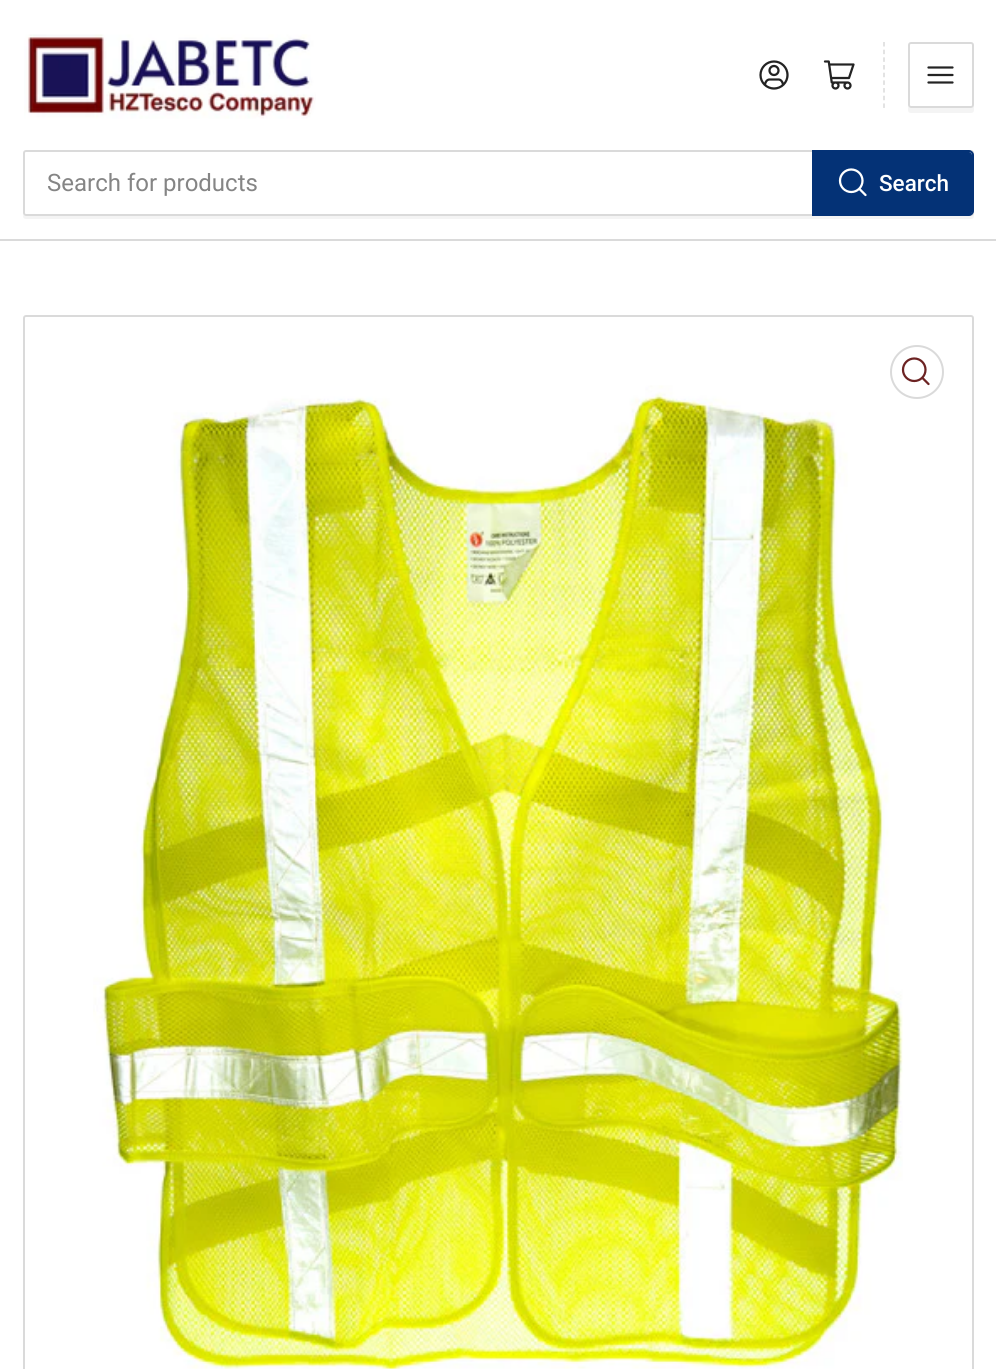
import math
import cairo

surface = cairo.ImageSurface(cairo.Format.RGB24, 996, 1369)
ctx = cairo.Context(surface)
options = cairo.FontOptions()
options.set_hint_metrics(cairo.HintMetrics.OFF)
options.set_hint_style(cairo.HintStyle.NONE)
ctx.set_font_options(options)
ctx.set_miter_limit(4)


def ink(r, g, b):
    ctx.set_source_rgb(r / 255, g / 255, b / 255)


def write(x, y, s, family, size, color, bold=False, italic=False):
    ctx.select_font_face(family, cairo.FontSlant.ITALIC if italic else cairo.FontSlant.NORMAL, cairo.FontWeight.BOLD if bold else cairo.FontWeight.NORMAL)
    ctx.set_font_size(size)
    ink(*color)
    ctx.move_to(x, y)
    ctx.show_text(s)


def block(x, y, w, h, *color):
    ink(*color)
    ctx.rectangle(x, y, w, h)
    ctx.fill()


def round_path(x, y, w, h, r):
    ctx.new_sub_path()
    for i, (u, v) in enumerate([(x + w - r, y + h - r), (x + r, y + h - r), (x + r, y + r), (x + w - r, y + r)]):
        ctx.arc(u, v, r, i * math.pi / 2, (i + 1) * math.pi / 2)
    ctx.close_path()


def paste(path, x, y, w, h):
    ctx.save()
    ctx.set_source_surface(cairo.ImageSurface.create_from_png(path), x, y)
    ctx.rectangle(x, y, w, h)
    ctx.fill()
    ctx.restore()


s1 = dict(family="Roboto", size=24, color=(133, 133, 133))
s2 = dict(family="Roboto Medium", size=22.5, color=(255, 255, 255))

ink(255, 255, 255)
ctx.paint()
block(0, 239, 996, 2, 218, 218, 218)
paste("pic1.png", 24, 34, 292, 85)
paste("pic2.png", 759, 60, 30, 30)
paste("pic3.png", 823, 60, 32, 30)
ctx.new_path()
ctx.move_to(884, 42)
ctx.line_to(884, 108)
ctx.set_line_width(1.5)
ctx.set_dash([4.5, 3.18])
ctx.stroke()
ink(244, 244, 244)
ctx.new_path()
ctx.move_to(908, 107)
ctx.line_to(908, 110)
ctx.curve_to(908, 112, 909, 113, 911, 113)
ctx.line_to(971, 113)
ctx.curve_to(973, 113, 974, 112, 974, 110)
ctx.line_to(974, 50)
ctx.line_to(974, 48)
ctx.line_to(974, 105)
ctx.curve_to(974, 107, 972, 108, 970, 108)
ctx.line_to(910, 108)
ctx.curve_to(909, 108, 909, 107, 908, 107)
ctx.close_path()
ctx.fill()
round_path(909, 43, 64, 64, 2)
ink(218, 218, 218)
ctx.set_line_width(2)
ctx.set_dash([])
ctx.stroke()
paste("pic4.png", 927, 66, 27, 18)
ink(244, 244, 244)
ctx.new_path()
ctx.move_to(23, 215)
ctx.line_to(23, 216)
ctx.curve_to(23, 218, 24, 219, 26, 219)
ctx.line_to(971, 219)
ctx.curve_to(973, 219, 974, 218, 974, 216)
ctx.line_to(974, 156)
ctx.line_to(974, 154)
ctx.line_to(974, 213)
ctx.curve_to(974, 215, 972, 216, 970, 216)
ctx.line_to(26, 216)
ctx.curve_to(24, 216, 24, 215, 23, 215)
ctx.close_path()
ctx.fill()
ink(255, 255, 255)
round_path(24, 151, 949, 64, 2)
ctx.fill_preserve()
ink(218, 218, 218)
ctx.stroke()
write(47, 191, "Search for products", **s1)
ctx.new_path()
ctx.move_to(813, 151)
ctx.line_to(969, 151)
ctx.curve_to(971, 151, 973, 153, 973, 155)
ctx.line_to(973, 211)
ctx.curve_to(973, 213, 971, 215, 969, 215)
ctx.line_to(813, 215)
ctx.close_path()
ink(4, 50, 118)
ctx.stroke()
ctx.new_path()
ctx.move_to(813, 152)
ctx.line_to(969, 152)
ctx.curve_to(970.5, 152, 972, 153.5, 972, 155)
ctx.line_to(972, 212)
ctx.curve_to(972, 213.5, 970.5, 215, 969, 215)
ctx.line_to(813, 215)
ctx.close_path()
ctx.fill()
paste("pic5.png", 838, 168, 29, 29)
write(879, 191, "Search", **s2)
round_path(24, 316, 949, 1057, 2)
ink(218, 218, 218)
ctx.stroke()
paste("pic7.png", 93, 385, 810, 984)
ctx.arc(917, 372, 26, 0, 2 * math.pi)
ctx.stroke()
paste("pic6.png", 901, 357, 29, 29)
surface.write_to_png("screenshot.png")
